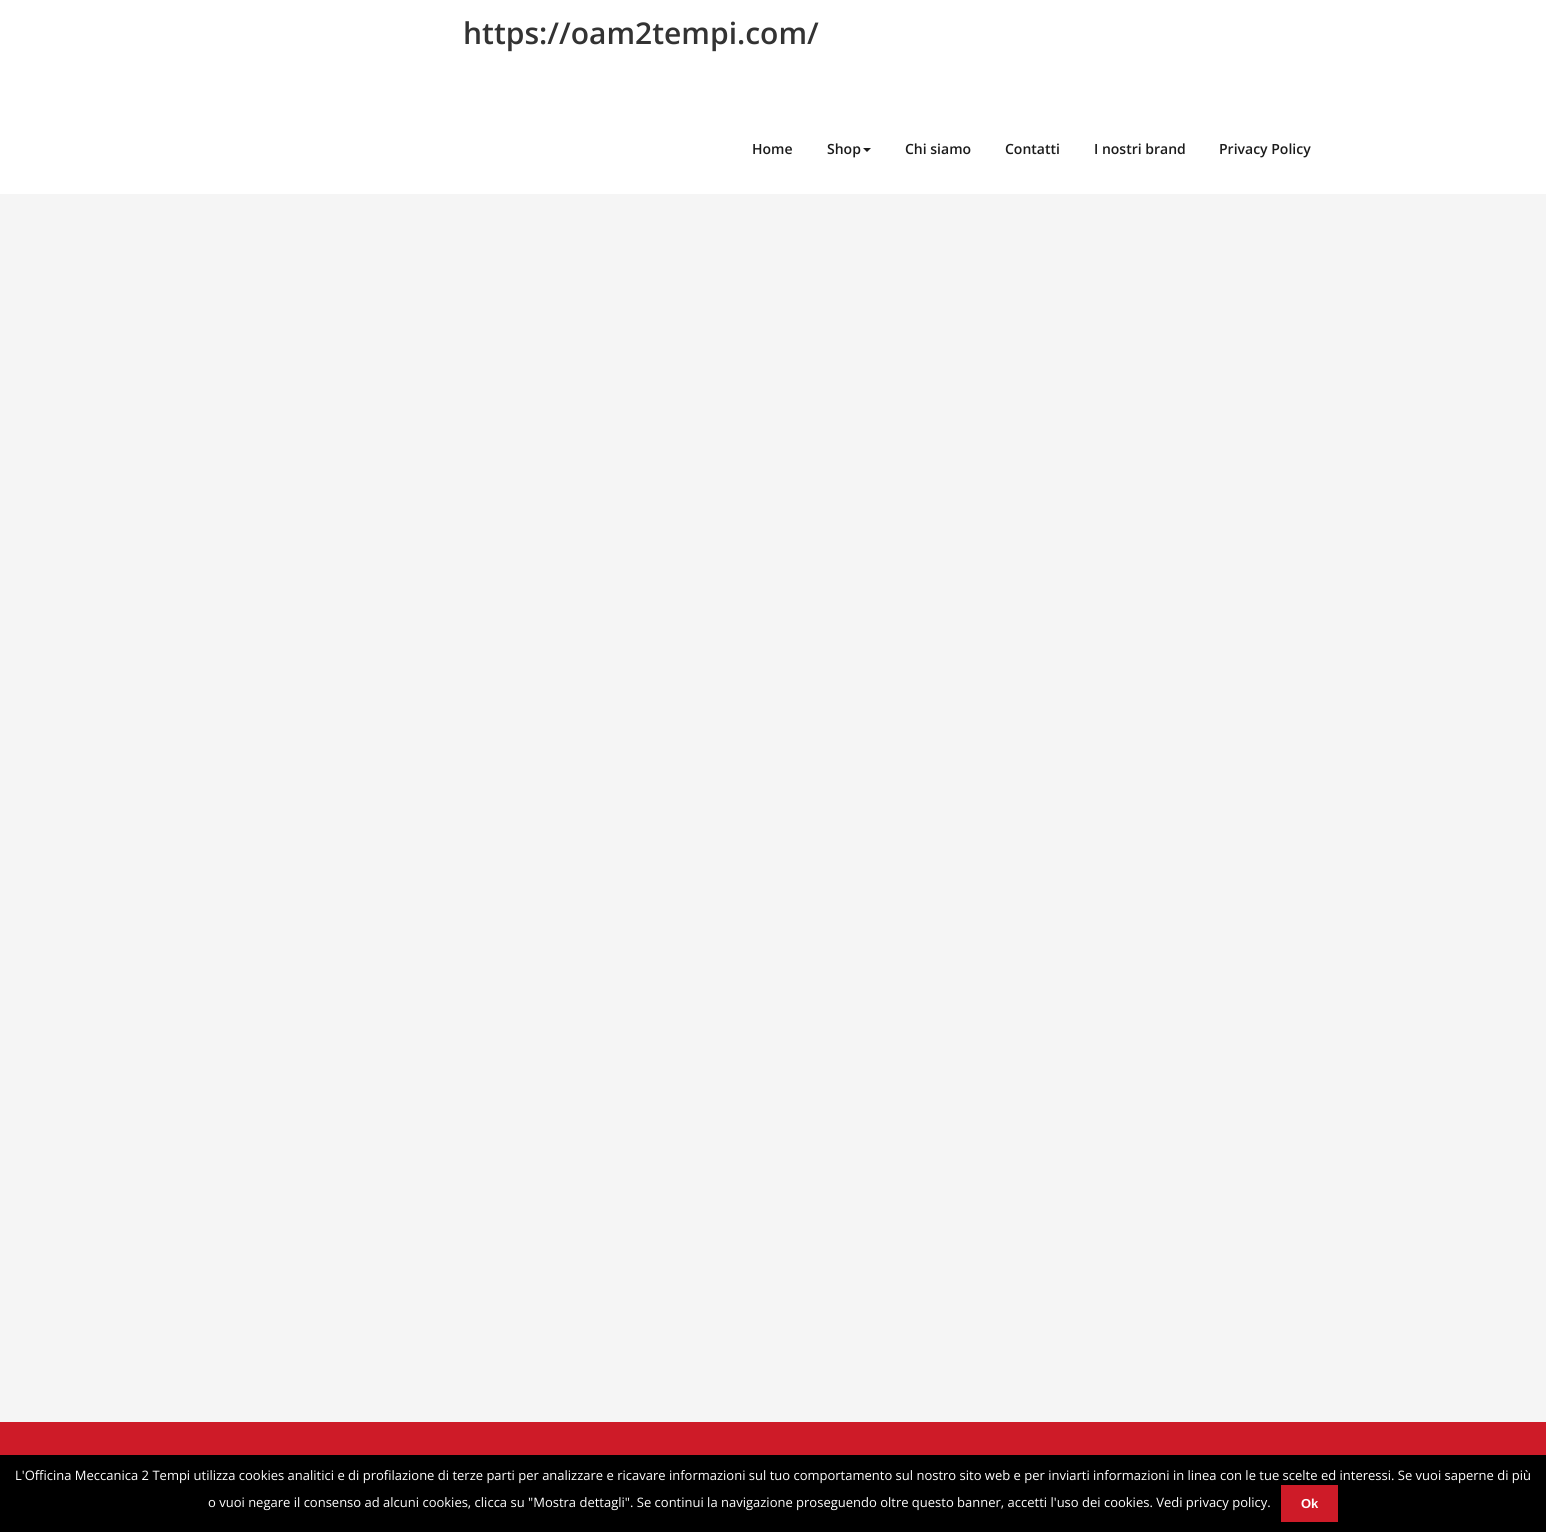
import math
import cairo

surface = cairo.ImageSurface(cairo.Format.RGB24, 1546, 1532)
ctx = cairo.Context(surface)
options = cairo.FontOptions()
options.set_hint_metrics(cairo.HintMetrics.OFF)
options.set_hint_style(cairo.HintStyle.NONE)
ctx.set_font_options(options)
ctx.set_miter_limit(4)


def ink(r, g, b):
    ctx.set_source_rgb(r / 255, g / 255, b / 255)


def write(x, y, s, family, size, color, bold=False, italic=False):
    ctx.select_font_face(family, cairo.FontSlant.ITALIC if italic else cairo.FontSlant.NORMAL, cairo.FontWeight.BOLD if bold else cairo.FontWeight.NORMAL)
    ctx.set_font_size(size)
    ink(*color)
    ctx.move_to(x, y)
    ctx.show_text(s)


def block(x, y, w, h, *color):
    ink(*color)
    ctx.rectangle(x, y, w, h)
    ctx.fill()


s1 = dict(family="Open Sans SemiBold", size=30, color=(51, 51, 51))
s2 = dict(family="Open Sans SemiBold", size=14, color=(27, 27, 27))
s3 = dict(family="Open Sans", size=13, color=(255, 255, 255))
s4 = dict(family="Liberation Sans", size=13, color=(255, 255, 255), bold=True)

ink(245, 245, 245)
ctx.paint()
block(0, 0, 1546, 194, 255, 255, 255)
write(463, 44, "https://oam2tempi.com/", **s1)
write(752, 154, "Home", **s2)
write(827, 154, "Shop", **s2)
ctx.new_path()
ctx.move_to(863, 148)
ctx.line_to(871, 148)
ctx.line_to(867, 152)
ctx.close_path()
ctx.fill()
write(905, 154, "Chi siamo", **s2)
write(1005, 154, "Contatti", **s2)
write(1094, 154, "I nostri brand", **s2)
write(1219, 154, "Privacy Policy", **s2)
block(0, 1422, 1546, 33, 206, 27, 40)
block(0, 1455, 1546, 77, 0, 0, 0)
write(15, 1480, "L'Officina Meccanica 2 Tempi utilizza cookies analitici e di profilazione di terze parti per analizzare e ricavare informazioni sul tuo comportamento sul nostro sito web e per inviarti informazioni in linea con le tue scelte ed interessi. Se vuoi saperne di più", **s3)
write(208, 1507, "o vuoi negare il consenso ad alcuni cookies, clicca su \"Mostra dettagli\". Se continui la navigazione proseguendo oltre questo banner, accetti l'uso dei cookies. Vedi privacy policy.", **s3)
block(1281, 1485, 57, 37, 206, 27, 40)
write(1301, 1508, "Ok", **s4)
surface.write_to_png("screenshot.png")
